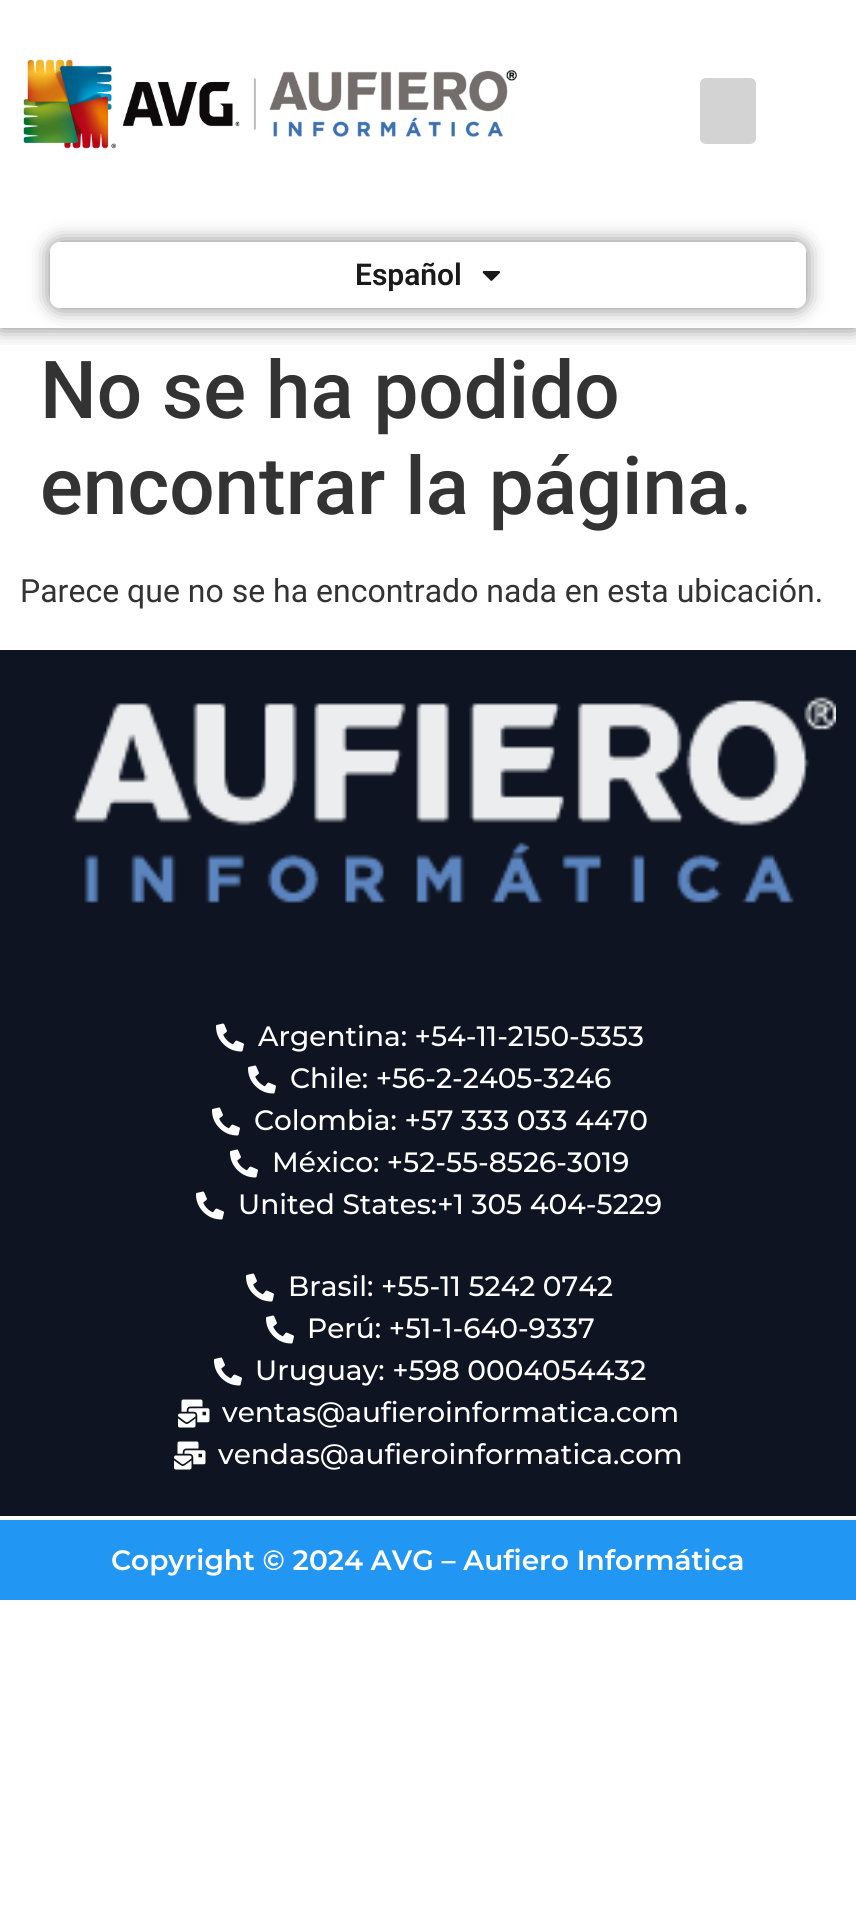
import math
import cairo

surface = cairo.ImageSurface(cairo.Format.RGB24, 856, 1907)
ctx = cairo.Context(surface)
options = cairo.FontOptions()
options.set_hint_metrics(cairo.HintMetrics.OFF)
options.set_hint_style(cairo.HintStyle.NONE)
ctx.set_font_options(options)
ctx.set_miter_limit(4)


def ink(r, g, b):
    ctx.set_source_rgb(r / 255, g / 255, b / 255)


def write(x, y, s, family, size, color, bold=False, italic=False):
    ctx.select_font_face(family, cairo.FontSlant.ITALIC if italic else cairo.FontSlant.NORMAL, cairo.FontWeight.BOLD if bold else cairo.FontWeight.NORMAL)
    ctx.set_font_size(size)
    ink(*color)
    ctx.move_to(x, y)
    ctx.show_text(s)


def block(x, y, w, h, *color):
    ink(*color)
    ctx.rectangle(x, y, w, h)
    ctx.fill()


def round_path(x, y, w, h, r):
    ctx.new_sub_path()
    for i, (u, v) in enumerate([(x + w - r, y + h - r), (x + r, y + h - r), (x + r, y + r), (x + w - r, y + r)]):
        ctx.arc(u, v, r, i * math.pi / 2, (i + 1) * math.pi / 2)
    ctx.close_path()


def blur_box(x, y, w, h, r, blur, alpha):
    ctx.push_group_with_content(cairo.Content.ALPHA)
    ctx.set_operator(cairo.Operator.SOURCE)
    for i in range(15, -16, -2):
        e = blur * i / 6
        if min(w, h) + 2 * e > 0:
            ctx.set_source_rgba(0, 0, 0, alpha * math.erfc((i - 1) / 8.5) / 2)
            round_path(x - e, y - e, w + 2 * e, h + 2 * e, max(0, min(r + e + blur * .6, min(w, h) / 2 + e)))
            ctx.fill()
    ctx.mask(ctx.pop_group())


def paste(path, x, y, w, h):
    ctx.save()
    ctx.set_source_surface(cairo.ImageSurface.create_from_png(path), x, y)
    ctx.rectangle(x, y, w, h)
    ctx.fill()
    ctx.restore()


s1 = dict(family="Roboto SemiBold", size=30, color=(26, 26, 26))
s2 = dict(family="Roboto Medium", size=80, color=(51, 51, 51))
s3 = dict(family="Roboto", size=32, color=(51, 51, 51))
s4 = dict(family="Montserrat Medium", size=28, color=(255, 255, 255))
s5 = dict(family="Montserrat SemiBold", size=28, color=(255, 255, 255))

ink(255, 255, 255)
ctx.paint()
ctx.save()
ctx.rectangle(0, 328, 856, 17)
ctx.clip()
ink(0, 0, 0)
blur_box(0, 0, 856, 328, 0, 10, 0.5)
ctx.restore()
paste("pic1.png", 23, 59, 495, 90)
ink(211, 211, 211)
round_path(700, 78, 56, 66, 6)
ctx.fill()
ctx.save()
ctx.set_fill_rule(cairo.FillRule.EVEN_ODD)
ctx.new_path()
ctx.move_to(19, 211)
ctx.line_to(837, 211)
ctx.line_to(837, 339)
ctx.line_to(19, 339)
ctx.close_path()
ctx.move_to(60, 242)
ctx.line_to(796, 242)
ctx.curve_to(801.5, 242, 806, 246.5, 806, 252)
ctx.line_to(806, 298)
ctx.curve_to(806, 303.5, 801.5, 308, 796, 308)
ctx.line_to(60, 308)
ctx.curve_to(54.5, 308, 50, 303.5, 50, 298)
ctx.line_to(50, 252)
ctx.curve_to(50, 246.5, 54.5, 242, 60, 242)
ctx.close_path()
ctx.clip()
ink(0, 0, 0)
blur_box(50, 242, 756, 66, 10, 10, 0.5)
ctx.restore()
write(355, 285, "Español", **s1)
paste("pic2.png", 482, 271, 19, 10)
write(40, 418, "No se ha podido", **s2)
write(40, 514, "encontrar la página.", **s2)
write(20, 602, "Parece que no se ha encontrado nada en esta ubicación.", **s3)
block(0, 650, 856, 866, 14, 20, 33)
paste("pic3.png", 72, 696, 764, 207)
paste("pic4.png", 216, 1023, 28, 29)
write(258, 1046, "Argentina: +54-11-2150-5353", **s4)
paste("pic4.png", 248, 1065, 28, 29)
write(290, 1088, "Chile: +56-2-2405-3246", **s4)
paste("pic4.png", 212, 1107, 28, 29)
write(254, 1130, "Colombia: +57 333 033 4470", **s4)
paste("pic4.png", 230, 1149, 28, 29)
write(272, 1172, "México: +52-55-8526-3019", **s4)
paste("pic4.png", 196, 1191, 28, 29)
write(238, 1214, "United States:+1 305 404-5229", **s4)
paste("pic4.png", 246, 1273, 28, 29)
write(288, 1296, "Brasil: +55-11 5242 0742", **s4)
paste("pic4.png", 266, 1315, 28, 29)
write(307, 1338, "Perú: +51-1-640-9337", **s4)
paste("pic4.png", 214, 1357, 28, 29)
write(255, 1380, "Uruguay: +598 0004054432", **s4)
paste("pic5.png", 178, 1399, 32, 29)
write(222, 1422, "ventas@aufieroinformatica.com", **s4)
paste("pic5.png", 174, 1441, 32, 29)
write(218, 1464, "vendas@aufieroinformatica.com", **s4)
block(0, 1520, 856, 80, 33, 150, 243)
write(111, 1570, "Copyright © 2024 AVG – Aufiero Informática", **s5)
surface.write_to_png("screenshot.png")
